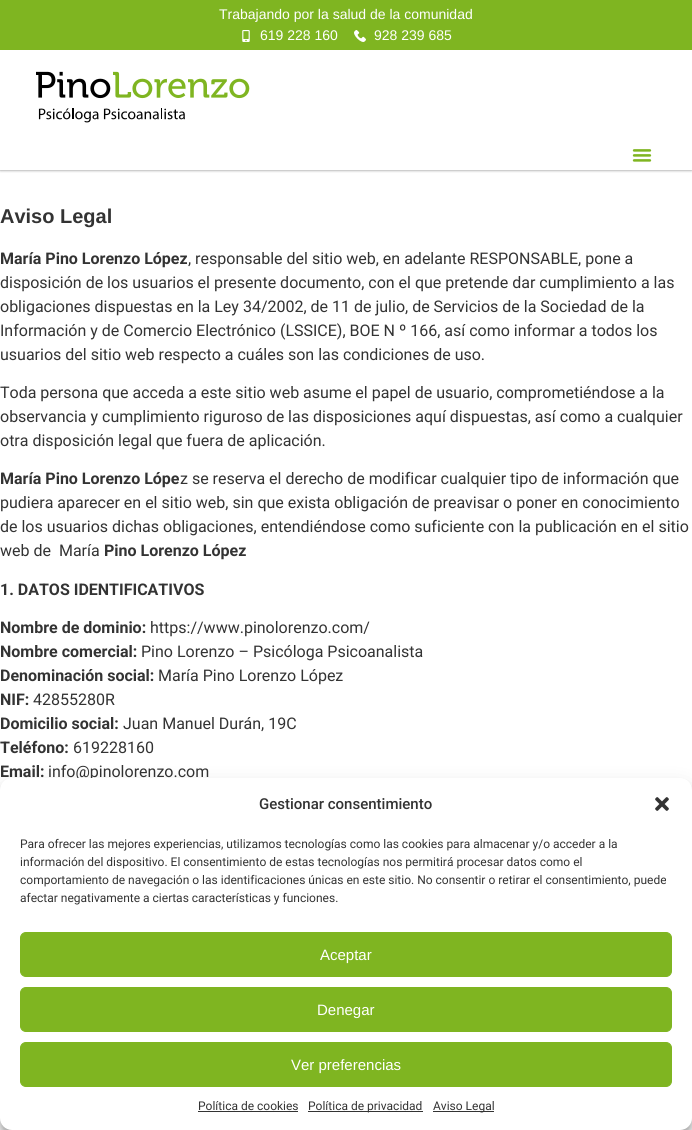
import math
import cairo

surface = cairo.ImageSurface(cairo.Format.RGB24, 692, 1130)
ctx = cairo.Context(surface)
options = cairo.FontOptions()
options.set_hint_metrics(cairo.HintMetrics.OFF)
options.set_hint_style(cairo.HintStyle.NONE)
ctx.set_font_options(options)
ctx.set_miter_limit(4)


def ink(r, g, b):
    ctx.set_source_rgb(r / 255, g / 255, b / 255)


def write(x, y, s, family, size, color, bold=False, italic=False):
    ctx.select_font_face(family, cairo.FontSlant.ITALIC if italic else cairo.FontSlant.NORMAL, cairo.FontWeight.BOLD if bold else cairo.FontWeight.NORMAL)
    ctx.set_font_size(size)
    ink(*color)
    ctx.move_to(x, y)
    ctx.show_text(s)


def block(x, y, w, h, *color):
    ink(*color)
    ctx.rectangle(x, y, w, h)
    ctx.fill()


def round_path(x, y, w, h, r):
    ctx.new_sub_path()
    for i, (u, v) in enumerate([(x + w - r, y + h - r), (x + r, y + h - r), (x + r, y + r), (x + w - r, y + r)]):
        ctx.arc(u, v, r, i * math.pi / 2, (i + 1) * math.pi / 2)
    ctx.close_path()


def blur_box(x, y, w, h, r, blur, alpha):
    ctx.push_group_with_content(cairo.Content.ALPHA)
    ctx.set_operator(cairo.Operator.SOURCE)
    for i in range(15, -16, -2):
        e = blur * i / 6
        if min(w, h) + 2 * e > 0:
            ctx.set_source_rgba(0, 0, 0, alpha * math.erfc((i - 1) / 8.5) / 2)
            round_path(x - e, y - e, w + 2 * e, h + 2 * e, max(0, min(r + e + blur * .6, min(w, h) / 2 + e)))
            ctx.fill()
    ctx.mask(ctx.pop_group())


def paste(path, x, y, w, h):
    ctx.save()
    ctx.set_source_surface(cairo.ImageSurface.create_from_png(path), x, y)
    ctx.rectangle(x, y, w, h)
    ctx.fill()
    ctx.restore()


s1 = dict(family="Liberation Sans", size=14, color=(255, 255, 255))
s2 = dict(family="Liberation Sans", size=20, color=(51, 51, 51), bold=True)
s3 = dict(family="Roboto", size=16, color=(51, 51, 51), bold=True)
s4 = dict(family="Roboto", size=16, color=(51, 51, 51))
s5 = dict(family="Roboto Medium", size=15, color=(51, 51, 51))
s6 = dict(family="Roboto", size=12, color=(51, 51, 51))
s7 = dict(family="Liberation Sans", size=15, color=(255, 255, 255))

ink(255, 255, 255)
ctx.paint()
ctx.save()
ctx.rectangle(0, 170, 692, 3)
ctx.clip()
ink(0, 0, 0)
blur_box(0, 50, 692, 120, 0, 1.5, 0.5)
ctx.restore()
block(0, 0, 692, 50, 127, 181, 33)
write(219, 19, "Trabajando por la salud de la comunidad", **s1)
paste("pic1.png", 242, 30, 8, 12)
write(260, 40, "619 228 160", **s1)
paste("pic2.png", 354, 30, 12, 12)
write(374, 40, "928 239 685", **s1)
paste("pic3.png", 36, 71, 214, 52)
paste("pic4.png", 632, 149, 20, 13)
write(0, 223, "Aviso Legal", **s2)
write(0, 264, "María Pino Lorenzo López", **s3)
write(188, 264, ", responsable del sitio web, en adelante RESPONSABLE, pone a", **s4)
write(0, 288, "disposición de los usuarios el presente documento, con el que pretende dar cumplimiento a las", **s4)
write(0, 312, "obligaciones dispuestas en la Ley 34/2002, de 11 de julio, de Servicios de la Sociedad de la", **s4)
write(0, 336, "Información y de Comercio Electrónico (LSSICE), BOE N º 166, así como informar a todos los", **s4)
write(0, 360, "usuarios del sitio web respecto a cuáles son las condiciones de uso.", **s4)
write(0, 398, "Toda persona que acceda a este sitio web asume el papel de usuario, comprometiéndose a la", **s4)
write(0, 422, "observancia y cumplimiento riguroso de las disposiciones aquí dispuestas, así como a cualquier", **s4)
write(0, 446, "otra disposición legal que fuera de aplicación.", **s4)
write(0, 484, "María Pino Lorenzo Lópe", **s3)
write(180, 484, "z se reserva el derecho de modificar cualquier tipo de información que", **s4)
write(0, 508, "pudiera aparecer en el sitio web, sin que exista obligación de preavisar o poner en conocimiento", **s4)
write(0, 532, "de los usuarios dichas obligaciones, entendiéndose como suficiente con la publicación en el sitio", **s4)
write(0, 556, "web de  María", **s4)
write(104, 556, "Pino Lorenzo López", **s3)
write(0, 595, "1. DATOS IDENTIFICATIVOS", **s3)
write(0, 633, "Nombre de dominio:", **s3)
write(150, 633, "https://www.pinolorenzo.com/", **s4)
write(0, 657, "Nombre comercial:", **s3)
write(141, 657, "Pino Lorenzo – Psicóloga Psicoanalista", **s4)
write(0, 681, "Denominación social:", **s3)
write(158, 681, "María Pino Lorenzo López", **s4)
write(0, 705, "NIF:", **s3)
write(33, 705, "42855280R", **s4)
write(0, 729, "Domicilio social:", **s3)
write(123, 729, "Juan Manuel Durán, 19C", **s4)
write(0, 753, "Teléfono:", **s3)
write(73, 753, "619228160", **s4)
write(0, 777, "Email:", **s3)
write(48, 777, "info@pinolorenzo.com", **s4)
ink(0, 0, 0)
blur_box(0, 784, 692, 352, 12, 3, 0.23)
blur_box(0, 788, 692, 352, 12, 10, 0.19)
ink(255, 255, 255)
round_path(0, 778, 692, 352, 12)
ctx.fill()
write(259, 809, "Gestionar consentimiento", **s5)
paste("pic5.png", 655, 797, 14, 14)
write(20, 848, "Para ofrecer las mejores experiencias, utilizamos tecnologías como las cookies para almacenar y/o acceder a la", **s6)
write(20, 866, "información del dispositivo. El consentimiento de estas tecnologías nos permitirá procesar datos como el", **s6)
write(20, 884, "comportamiento de navegación o las identificaciones únicas en este sitio. No consentir o retirar el consentimiento, puede", **s6)
write(20, 902, "afectar negativamente a ciertas características y funciones.", **s6)
ink(127, 181, 33)
round_path(20.5, 932.5, 651, 44, 5.5)
ctx.fill_preserve()
ctx.set_line_width(1)
ctx.stroke()
write(320, 960, "Aceptar", **s7)
ink(127, 181, 33)
round_path(20.5, 987.5, 651, 44, 5.5)
ctx.fill_preserve()
ctx.stroke()
write(317, 1015, "Denegar", **s7)
ink(127, 181, 33)
round_path(20.5, 1042.5, 651, 44, 5.5)
ctx.fill_preserve()
ctx.stroke()
write(291, 1070, "Ver preferencias", **s7)
write(198, 1110, "Política de cookies", **s6)
block(198, 1111, 100, 1, 51, 51, 51)
block(308, 1111, 115, 1, 51, 51, 51)
write(308, 1110, "Política de privacidad", **s6)
block(433, 1111, 61, 1, 51, 51, 51)
write(433, 1110, "Aviso Legal", **s6)
surface.write_to_png("screenshot.png")
